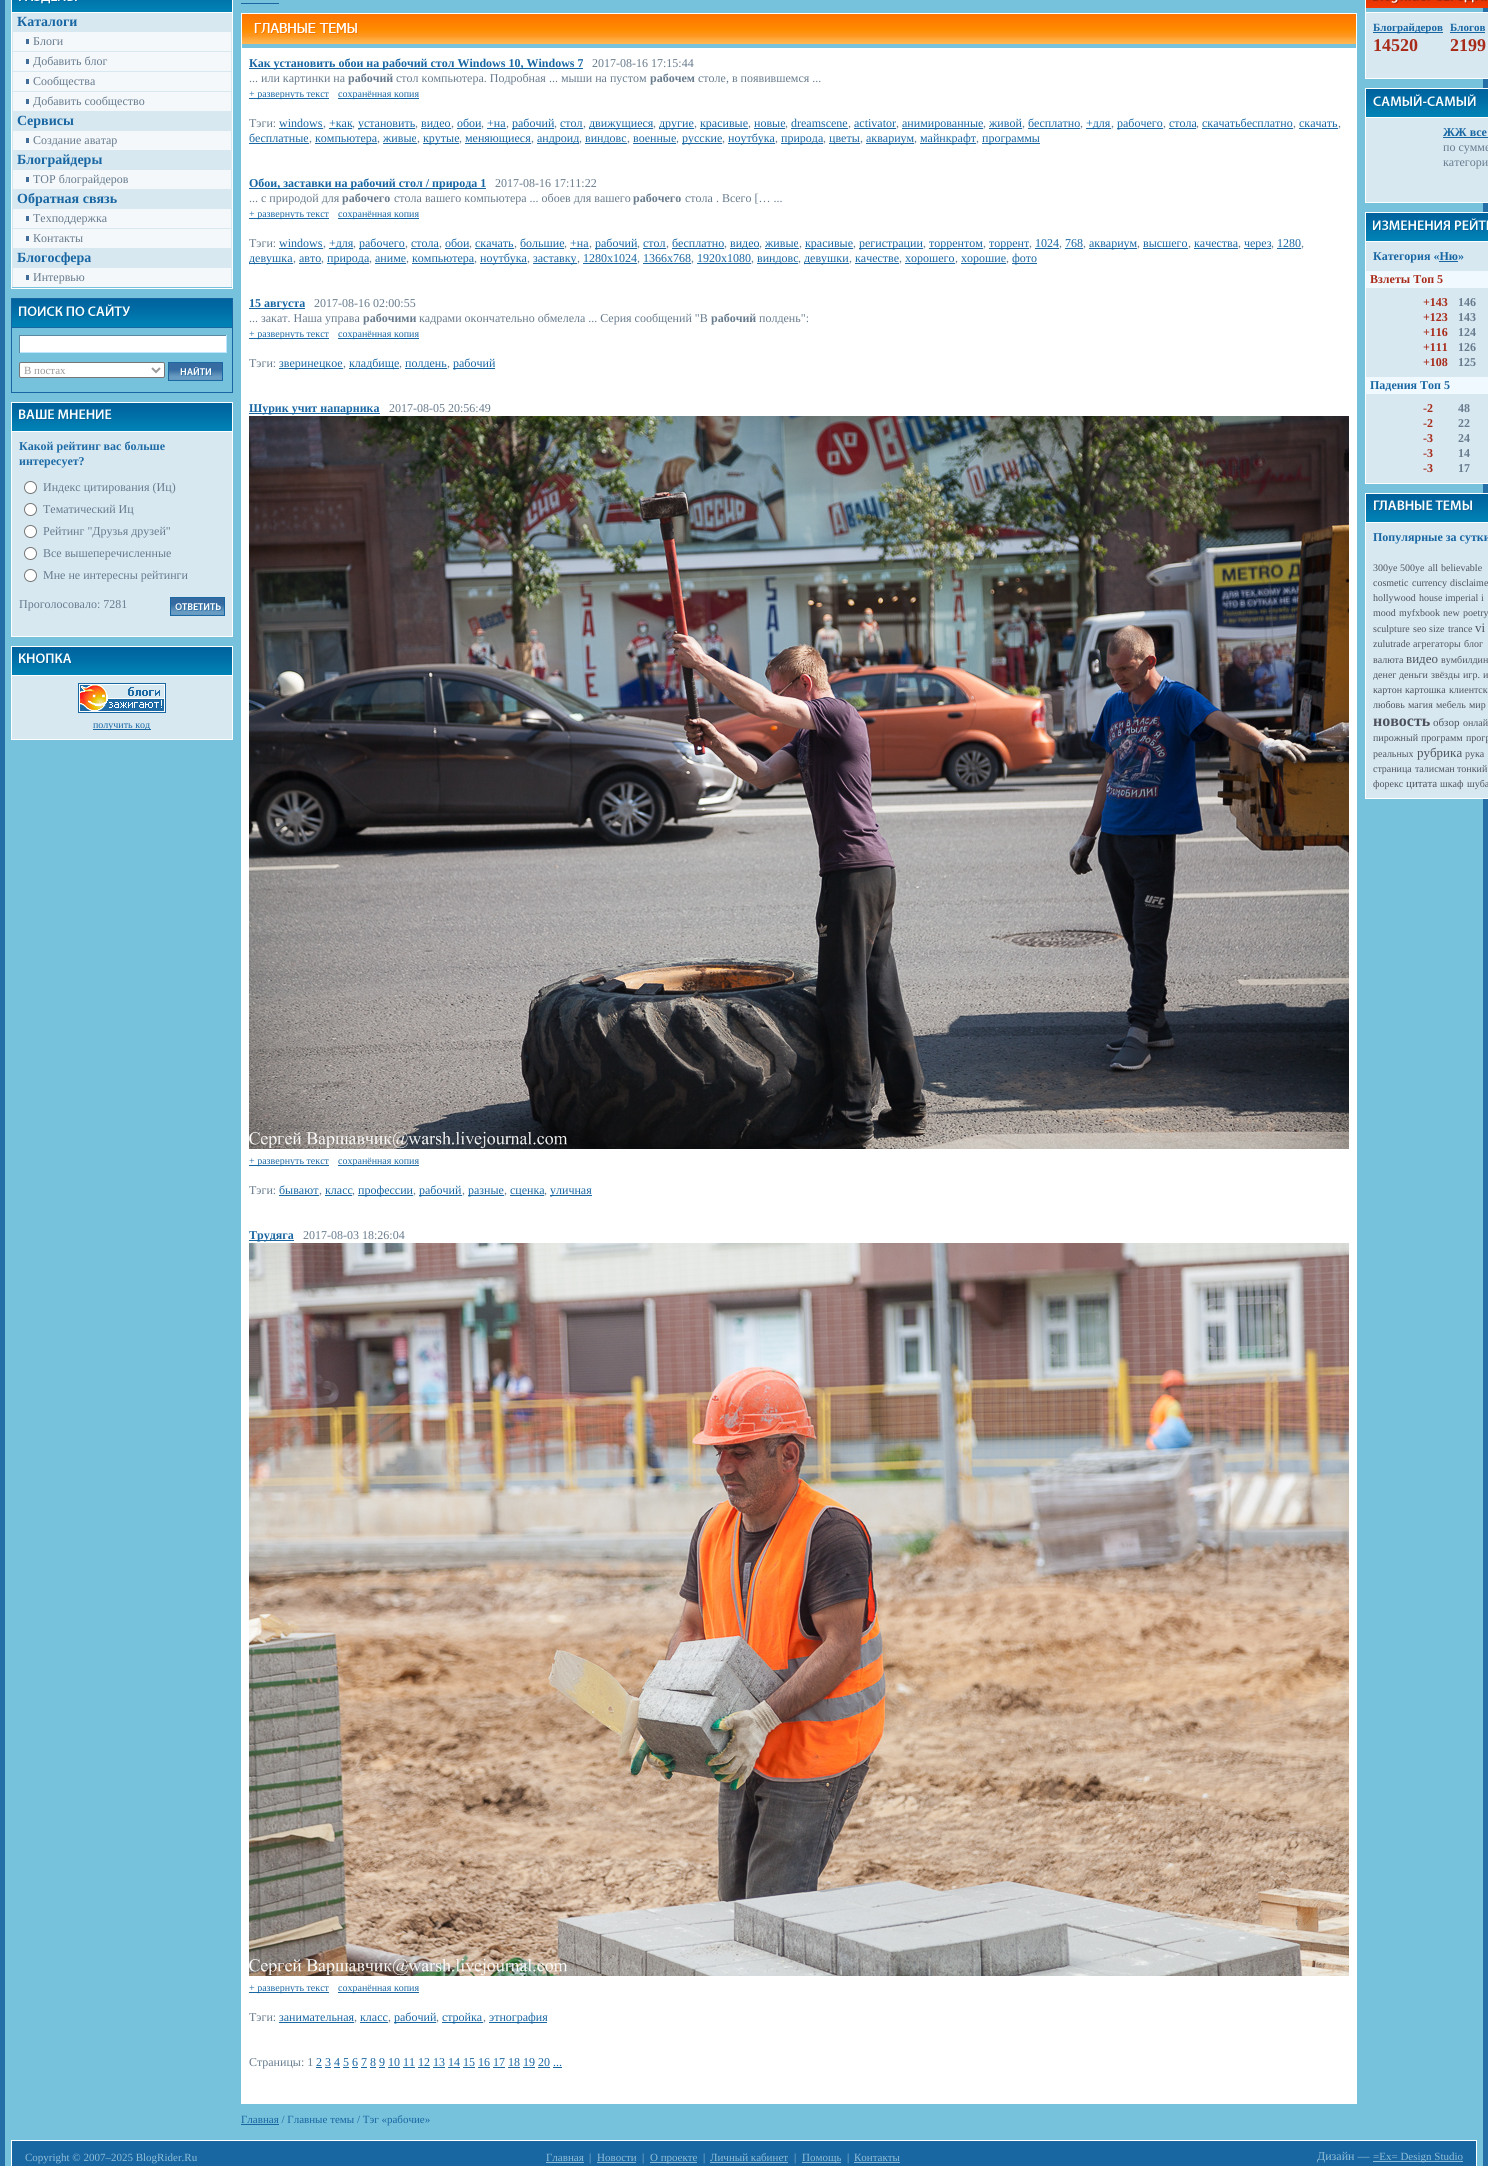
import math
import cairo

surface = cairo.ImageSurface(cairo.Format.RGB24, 1488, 2166)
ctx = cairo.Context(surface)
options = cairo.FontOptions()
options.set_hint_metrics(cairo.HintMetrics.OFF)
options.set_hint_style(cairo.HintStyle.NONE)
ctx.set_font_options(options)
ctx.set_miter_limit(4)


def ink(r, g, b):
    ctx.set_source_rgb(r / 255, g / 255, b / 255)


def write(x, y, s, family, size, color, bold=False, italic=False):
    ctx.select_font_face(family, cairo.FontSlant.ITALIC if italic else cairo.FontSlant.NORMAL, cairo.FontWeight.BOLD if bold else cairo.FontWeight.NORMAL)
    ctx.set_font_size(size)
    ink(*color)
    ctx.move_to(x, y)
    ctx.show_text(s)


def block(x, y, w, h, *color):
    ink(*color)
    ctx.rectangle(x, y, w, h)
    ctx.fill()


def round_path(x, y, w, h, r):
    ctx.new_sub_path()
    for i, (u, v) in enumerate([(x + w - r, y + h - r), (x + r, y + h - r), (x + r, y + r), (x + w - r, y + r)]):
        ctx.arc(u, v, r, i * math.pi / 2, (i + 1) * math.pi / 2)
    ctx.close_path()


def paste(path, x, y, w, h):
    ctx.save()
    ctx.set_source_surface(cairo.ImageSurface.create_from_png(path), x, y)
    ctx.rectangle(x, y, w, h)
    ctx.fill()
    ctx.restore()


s1 = dict(family="Liberation Serif", size=14, color=(24, 102, 162), bold=True)
s2 = dict(family="Liberation Serif", size=12, color=(103, 123, 141))
s3 = dict(family="Liberation Serif", size=11, color=(153, 153, 153))
s4 = dict(family="Liberation Serif", size=12, color=(30, 107, 165), bold=True)
s5 = dict(family="Liberation Serif", size=10, color=(24, 102, 162))
s6 = dict(family="Liberation Serif", size=12, color=(24, 102, 162), bold=True)
s7 = dict(family="Liberation Serif", size=12, color=(103, 123, 141), bold=True)
s8 = dict(family="Liberation Serif", size=12, color=(24, 102, 162))
s9 = dict(family="Liberation Serif", size=11, color=(24, 102, 162))
s10 = dict(family="Liberation Serif", size=11, color=(24, 102, 162), bold=True)
s11 = dict(family="Liberation Serif", size=18, color=(168, 42, 24), bold=True)
s12 = dict(family="Liberation Serif", size=12, color=(168, 42, 24), bold=True)
s13 = dict(family="Liberation Serif", size=10, color=(78, 82, 95))
s14 = dict(family="Liberation Serif", size=13, color=(78, 82, 95))
s15 = dict(family="Liberation Serif", size=16, color=(78, 82, 95), bold=True)
s16 = dict(family="Liberation Serif", size=11, color=(78, 82, 95))
s17 = dict(family="Liberation Serif", size=11, color=(143, 191, 217))
s18 = dict(family="Liberation Serif", size=12, color=(143, 191, 217))

ink(36, 111, 168)
ctx.paint()
block(5, 0, 1478, 2166, 118, 193, 219)
ctx.rectangle(11.5, -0.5, 221, 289)
ink(255, 255, 255)
ctx.set_line_width(1)
ctx.stroke()
paste("pic1.png", 12, 0, 220, 12)
block(12, 12, 220, 1, 255, 255, 255)
paste("pic2.png", 19, 0, 59, 5)
block(12, 13, 220, 274, 215, 232, 241)
write(17, 26, "Каталоги", **s1)
block(13, 32, 218, 19, 244, 248, 251)
write(33, 45, "Блоги", **s2)
block(26, 39, 3, 5, 65, 108, 154)
block(13, 52, 218, 19, 244, 248, 251)
write(33, 65, "Добавить блог", **s2)
block(26, 59, 3, 5, 65, 108, 154)
block(13, 72, 218, 19, 244, 248, 251)
write(33, 85, "Сообщества", **s2)
block(26, 79, 3, 5, 65, 108, 154)
block(13, 92, 218, 19, 244, 248, 251)
write(33, 105, "Добавить сообщество", **s2)
block(26, 99, 3, 5, 65, 108, 154)
write(17, 125, "Сервисы", **s1)
block(13, 131, 218, 19, 244, 248, 251)
write(33, 144, "Создание аватар", **s2)
block(26, 138, 3, 5, 65, 108, 154)
write(17, 164, "Блограйдеры", **s1)
block(13, 170, 218, 19, 244, 248, 251)
write(33, 183, "TOP блограйдеров", **s2)
block(26, 177, 3, 5, 65, 108, 154)
write(17, 203, "Обратная связь", **s1)
block(13, 209, 218, 19, 244, 248, 251)
write(33, 222, "Техподдержка", **s2)
block(26, 216, 3, 5, 65, 108, 154)
block(13, 229, 218, 19, 244, 248, 251)
write(33, 242, "Контакты", **s2)
block(26, 236, 3, 5, 65, 108, 154)
write(17, 262, "Блогосфера", **s1)
block(13, 268, 218, 19, 244, 248, 251)
write(33, 281, "Интервью", **s2)
block(26, 275, 3, 5, 65, 108, 154)
ctx.rectangle(11.5, 298.5, 221, 94)
ink(24, 102, 162)
ctx.stroke()
paste("pic3.png", 12, 299, 220, 28)
block(12, 327, 220, 1, 24, 102, 162)
paste("pic4.png", 19, 304, 112, 13)
block(20, 336, 206, 16, 255, 255, 255)
block(19, 335, 208, 1, 93, 137, 160)
block(226, 335, 1, 18, 188, 231, 255)
block(19, 352, 208, 1, 188, 231, 255)
block(19, 335, 1, 18, 93, 137, 160)
ink(255, 255, 255)
round_path(19.5, 362.5, 145, 15, 1.5)
ctx.fill_preserve()
ink(118, 118, 118)
ctx.stroke()
ctx.new_path()
ctx.move_to(152, 368)
ctx.line_to(156, 372)
ctx.line_to(160, 368)
ink(153, 153, 153)
ctx.set_line_width(2)
ctx.stroke()
write(24, 374, "В постах", **s3)
paste("pic5.png", 168, 362, 55, 19)
ctx.rectangle(11.5, 402.5, 221, 234)
ink(255, 255, 255)
ctx.set_line_width(1)
ctx.stroke()
paste("pic3.png", 12, 403, 220, 28)
block(12, 431, 220, 1, 255, 255, 255)
paste("pic6.png", 19, 409, 93, 11)
block(12, 432, 220, 204, 215, 232, 241)
write(19, 450, "Какой рейтинг вас больше", **s4)
write(19, 465, "интересует?", **s4)
ink(255, 255, 255)
ctx.new_path()
ctx.arc(30.5, 487.5, 6, 0, 2 * math.pi)
ctx.fill_preserve()
ink(118, 118, 118)
ctx.stroke()
write(43, 491, "Индекс цитирования (Иц)", **s2)
ink(255, 255, 255)
ctx.new_path()
ctx.arc(30.5, 509.5, 6, 0, 2 * math.pi)
ctx.fill_preserve()
ink(118, 118, 118)
ctx.stroke()
write(43, 513, "Тематический Иц", **s2)
ink(255, 255, 255)
ctx.new_path()
ctx.arc(30.5, 531.5, 6, 0, 2 * math.pi)
ctx.fill_preserve()
ink(118, 118, 118)
ctx.stroke()
write(43, 535, "Рейтинг \"Друзья друзей\"", **s2)
ink(255, 255, 255)
ctx.new_path()
ctx.arc(30.5, 553.5, 6, 0, 2 * math.pi)
ctx.fill_preserve()
ink(118, 118, 118)
ctx.stroke()
write(43, 557, "Все вышеперечисленные", **s2)
ink(255, 255, 255)
ctx.new_path()
ctx.arc(30.5, 575.5, 6, 0, 2 * math.pi)
ctx.fill_preserve()
ink(118, 118, 118)
ctx.stroke()
write(43, 579, "Мне не интересны рейтинги", **s2)
write(19, 608, "Проголосовало: 7281", **s2)
paste("pic7.png", 170, 597, 55, 19)
ctx.rectangle(11.5, 646.5, 221, 93)
ink(255, 255, 255)
ctx.stroke()
paste("pic3.png", 12, 647, 220, 28)
block(12, 675, 220, 1, 255, 255, 255)
paste("pic8.png", 19, 653, 53, 11)
block(12, 676, 220, 63, 215, 232, 241)
paste("pic9.png", 78, 683, 88, 30)
block(93, 729, 58, 1, 24, 102, 162)
write(93, 728, "получить код", **s5)
block(241, 3, 38, 1, 24, 102, 162)
ctx.rectangle(241.5, 13.5, 1115, 2090)
ink(255, 255, 255)
ctx.stroke()
paste("pic10.png", 242, 14, 1114, 30)
block(242, 48, 1114, 2055, 255, 255, 255)
paste("pic11.png", 254, 23, 104, 11)
block(249, 68, 334, 1, 24, 102, 162)
write(249, 67, "Как установить обои на рабочий стол Windows 10, Windows 7", **s6)
write(592, 67, "2017-08-16 17:15:44", **s2)
write(249, 82, "... или картинки на", **s2)
write(348, 82, "рабочий", **s7)
write(396, 82, "стол компьютера. Подробная ... мыши на пустом", **s2)
write(650, 82, "рабочем", **s7)
write(698, 82, "столе, в появившемся ...", **s2)
block(249, 98, 80, 1, 24, 102, 162)
write(249, 97, "+ развернуть текст", **s5)
block(338, 98, 81, 1, 24, 102, 162)
write(338, 97, "сохранённая копия", **s5)
write(249, 127, "Тэги:", **s2)
write(279, 127, "windows", **s8)
block(279, 128, 44, 1, 24, 102, 162)
write(323, 127, ",", **s2)
write(329, 127, "+как", **s8)
block(329, 128, 23, 1, 24, 102, 162)
write(352, 127, ",", **s2)
block(358, 128, 57, 1, 24, 102, 162)
write(358, 127, "установить", **s8)
write(415, 127, ",", **s2)
block(421, 128, 30, 1, 24, 102, 162)
write(421, 127, "видео", **s8)
write(451, 127, ",", **s2)
write(457, 127, "обои", **s8)
block(457, 128, 24, 1, 24, 102, 162)
write(481, 127, ",", **s2)
write(487, 127, "+на", **s8)
block(487, 128, 19, 1, 24, 102, 162)
write(506, 127, ",", **s2)
block(512, 128, 42, 1, 24, 102, 162)
write(512, 127, "рабочий", **s8)
write(554, 127, ",", **s2)
write(560, 127, "стол", **s8)
block(560, 128, 23, 1, 24, 102, 162)
write(583, 127, ",", **s2)
block(589, 128, 64, 1, 24, 102, 162)
write(589, 127, "движущиеся", **s8)
write(653, 127, ",", **s2)
block(659, 128, 35, 1, 24, 102, 162)
write(659, 127, "другие", **s8)
write(694, 127, ",", **s2)
block(700, 128, 48, 1, 24, 102, 162)
write(700, 127, "красивые", **s8)
write(748, 127, ",", **s2)
write(754, 127, "новые", **s8)
block(754, 128, 31, 1, 24, 102, 162)
write(785, 127, ",", **s2)
write(791, 127, "dreamscene", **s8)
block(791, 128, 57, 1, 24, 102, 162)
write(848, 127, ",", **s2)
write(854, 127, "activator", **s8)
block(854, 128, 42, 1, 24, 102, 162)
write(896, 127, ",", **s2)
block(902, 128, 81, 1, 24, 102, 162)
write(902, 127, "анимированные", **s8)
write(983, 127, ",", **s2)
write(989, 127, "живой", **s8)
block(989, 128, 33, 1, 24, 102, 162)
write(1022, 127, ",", **s2)
write(1028, 127, "бесплатно", **s8)
block(1028, 128, 52, 1, 24, 102, 162)
write(1080, 127, ",", **s2)
block(1086, 128, 25, 1, 24, 102, 162)
write(1086, 127, "+для", **s8)
write(1111, 127, ",", **s2)
block(1117, 128, 46, 1, 24, 102, 162)
write(1117, 127, "рабочего", **s8)
write(1163, 127, ",", **s2)
write(1169, 127, "стола", **s8)
block(1169, 128, 27, 1, 24, 102, 162)
write(1196, 127, ",", **s2)
write(1202, 127, "скачатьбесплатно", **s8)
block(1202, 128, 91, 1, 24, 102, 162)
write(1293, 127, ",", **s2)
write(1299, 127, "скачать", **s8)
block(1299, 128, 39, 1, 24, 102, 162)
write(1338, 127, ",", **s2)
write(249, 142, "бесплатные", **s8)
block(249, 143, 60, 1, 24, 102, 162)
write(309, 142, ",", **s2)
block(315, 143, 62, 1, 24, 102, 162)
write(315, 142, "компьютера", **s8)
write(377, 142, ",", **s2)
write(383, 142, "живые", **s8)
block(383, 143, 34, 1, 24, 102, 162)
write(417, 142, ",", **s2)
block(423, 143, 36, 1, 24, 102, 162)
write(423, 142, "крутые", **s8)
write(459, 142, ",", **s2)
block(465, 143, 66, 1, 24, 102, 162)
write(465, 142, "меняющиеся", **s8)
write(531, 142, ",", **s2)
block(537, 143, 42, 1, 24, 102, 162)
write(537, 142, "андроид", **s8)
write(579, 142, ",", **s2)
block(585, 143, 42, 1, 24, 102, 162)
write(585, 142, "виндовс", **s8)
write(627, 142, ",", **s2)
write(633, 142, "военные", **s8)
block(633, 143, 43, 1, 24, 102, 162)
write(676, 142, ",", **s2)
block(682, 143, 40, 1, 24, 102, 162)
write(682, 142, "русские", **s8)
write(722, 142, ",", **s2)
block(728, 143, 47, 1, 24, 102, 162)
write(728, 142, "ноутбука", **s8)
write(775, 142, ",", **s2)
block(781, 143, 42, 1, 24, 102, 162)
write(781, 142, "природа", **s8)
write(823, 142, ",", **s2)
block(829, 143, 31, 1, 24, 102, 162)
write(829, 142, "цветы", **s8)
write(860, 142, ",", **s2)
block(866, 143, 48, 1, 24, 102, 162)
write(866, 142, "аквариум", **s8)
write(914, 142, ",", **s2)
block(920, 143, 56, 1, 24, 102, 162)
write(920, 142, "майнкрафт", **s8)
write(976, 142, ",", **s2)
block(982, 143, 58, 1, 24, 102, 162)
write(982, 142, "программы", **s8)
block(249, 188, 237, 1, 24, 102, 162)
write(249, 187, "Обои, заставки на рабочий стол / природа 1", **s6)
write(495, 187, "2017-08-16 17:11:22", **s2)
write(249, 202, "... с природой для", **s2)
write(342, 202, "рабочего", **s7)
write(394, 202, "стола вашего компьютера ... обоев для вашего", **s2)
write(633, 202, "рабочего", **s7)
write(685, 202, "стола . Всего [… ...", **s2)
block(249, 218, 80, 1, 24, 102, 162)
write(249, 217, "+ развернуть текст", **s5)
block(338, 218, 81, 1, 24, 102, 162)
write(338, 217, "сохранённая копия", **s5)
write(249, 247, "Тэги:", **s2)
write(279, 247, "windows", **s8)
block(279, 248, 44, 1, 24, 102, 162)
write(323, 247, ",", **s2)
block(329, 248, 24, 1, 24, 102, 162)
write(329, 247, "+для", **s8)
write(353, 247, ",", **s2)
block(359, 248, 46, 1, 24, 102, 162)
write(359, 247, "рабочего", **s8)
write(405, 247, ",", **s2)
write(411, 247, "стола", **s8)
block(411, 248, 28, 1, 24, 102, 162)
write(439, 247, ",", **s2)
write(445, 247, "обои", **s8)
block(445, 248, 24, 1, 24, 102, 162)
write(469, 247, ",", **s2)
write(475, 247, "скачать", **s8)
block(475, 248, 39, 1, 24, 102, 162)
write(514, 247, ",", **s2)
write(520, 247, "большие", **s8)
block(520, 248, 44, 1, 24, 102, 162)
write(564, 247, ",", **s2)
write(570, 247, "+на", **s8)
block(570, 248, 19, 1, 24, 102, 162)
write(589, 247, ",", **s2)
block(595, 248, 42, 1, 24, 102, 162)
write(595, 247, "рабочий", **s8)
write(637, 247, ",", **s2)
write(643, 247, "стол", **s8)
block(643, 248, 23, 1, 24, 102, 162)
write(666, 247, ",", **s2)
write(672, 247, "бесплатно", **s8)
block(672, 248, 52, 1, 24, 102, 162)
write(724, 247, ",", **s2)
block(730, 248, 29, 1, 24, 102, 162)
write(730, 247, "видео", **s8)
write(759, 247, ",", **s2)
write(765, 247, "живые", **s8)
block(765, 248, 34, 1, 24, 102, 162)
write(799, 247, ",", **s2)
block(805, 248, 48, 1, 24, 102, 162)
write(805, 247, "красивые", **s8)
write(853, 247, ",", **s2)
block(859, 248, 64, 1, 24, 102, 162)
write(859, 247, "регистрации", **s8)
write(923, 247, ",", **s2)
block(929, 248, 54, 1, 24, 102, 162)
write(929, 247, "торрентом", **s8)
write(983, 247, ",", **s2)
block(989, 248, 40, 1, 24, 102, 162)
write(989, 247, "торрент", **s8)
write(1029, 247, ",", **s2)
write(1035, 247, "1024", **s8)
block(1035, 248, 24, 1, 24, 102, 162)
write(1059, 247, ",", **s2)
write(1065, 247, "768", **s8)
block(1065, 248, 18, 1, 24, 102, 162)
write(1083, 247, ",", **s2)
block(1089, 248, 48, 1, 24, 102, 162)
write(1089, 247, "аквариум", **s8)
write(1137, 247, ",", **s2)
write(1143, 247, "высшего", **s8)
block(1143, 248, 45, 1, 24, 102, 162)
write(1188, 247, ",", **s2)
write(1194, 247, "качества", **s8)
block(1194, 248, 44, 1, 24, 102, 162)
write(1238, 247, ",", **s2)
block(1244, 248, 27, 1, 24, 102, 162)
write(1244, 247, "через", **s8)
write(1271, 247, ",", **s2)
write(1277, 247, "1280", **s8)
block(1277, 248, 24, 1, 24, 102, 162)
write(1301, 247, ",", **s2)
block(249, 263, 44, 1, 24, 102, 162)
write(249, 262, "девушка", **s8)
write(293, 262, ",", **s2)
write(299, 262, "авто", **s8)
block(299, 263, 22, 1, 24, 102, 162)
write(321, 262, ",", **s2)
block(327, 263, 42, 1, 24, 102, 162)
write(327, 262, "природа", **s8)
write(369, 262, ",", **s2)
write(375, 262, "аниме", **s8)
block(375, 263, 31, 1, 24, 102, 162)
write(406, 262, ",", **s2)
block(412, 263, 62, 1, 24, 102, 162)
write(412, 262, "компьютера", **s8)
write(474, 262, ",", **s2)
block(480, 263, 47, 1, 24, 102, 162)
write(480, 262, "ноутбука", **s8)
write(527, 262, ",", **s2)
block(533, 263, 44, 1, 24, 102, 162)
write(533, 262, "заставку", **s8)
write(577, 262, ",", **s2)
write(583, 262, "1280х1024", **s8)
block(583, 263, 54, 1, 24, 102, 162)
write(637, 262, ",", **s2)
write(643, 262, "1366х768", **s8)
block(643, 263, 48, 1, 24, 102, 162)
write(691, 262, ",", **s2)
write(697, 262, "1920х1080", **s8)
block(697, 263, 54, 1, 24, 102, 162)
write(751, 262, ",", **s2)
block(757, 263, 41, 1, 24, 102, 162)
write(757, 262, "виндовс", **s8)
write(798, 262, ",", **s2)
block(804, 263, 45, 1, 24, 102, 162)
write(804, 262, "девушки", **s8)
write(849, 262, ",", **s2)
write(855, 262, "качестве", **s8)
block(855, 263, 44, 1, 24, 102, 162)
write(899, 262, ",", **s2)
block(905, 263, 50, 1, 24, 102, 162)
write(905, 262, "хорошего", **s8)
write(955, 262, ",", **s2)
block(961, 263, 45, 1, 24, 102, 162)
write(961, 262, "хорошие", **s8)
write(1006, 262, ",", **s2)
block(1012, 263, 25, 1, 24, 102, 162)
write(1012, 262, "фото", **s8)
block(249, 308, 56, 1, 24, 102, 162)
write(249, 307, "15 августа", **s6)
write(314, 307, "2017-08-16 02:00:55", **s2)
write(249, 322, "... закат. Наша управа", **s2)
write(363, 322, "рабочими", **s7)
write(419, 322, "кадрами окончательно обмелела ... Серия сообщений \"В", **s2)
write(711, 322, "рабочий", **s7)
write(759, 322, "полдень\":", **s2)
block(249, 338, 80, 1, 24, 102, 162)
write(249, 337, "+ развернуть текст", **s5)
block(338, 338, 81, 1, 24, 102, 162)
write(338, 337, "сохранённая копия", **s5)
write(249, 367, "Тэги:", **s2)
block(279, 368, 64, 1, 24, 102, 162)
write(279, 367, "зверинецкое", **s8)
write(343, 367, ",", **s2)
block(349, 368, 50, 1, 24, 102, 162)
write(349, 367, "кладбище", **s8)
write(399, 367, ",", **s2)
block(405, 368, 42, 1, 24, 102, 162)
write(405, 367, "полдень", **s8)
write(447, 367, ",", **s2)
block(453, 368, 42, 1, 24, 102, 162)
write(453, 367, "рабочий", **s8)
block(249, 413, 131, 1, 24, 102, 162)
write(249, 412, "Шурик учит напарника", **s6)
write(389, 412, "2017-08-05 20:56:49", **s2)
paste("pic12.png", 249, 416, 1100, 733)
block(249, 1165, 80, 1, 24, 102, 162)
write(249, 1164, "+ развернуть текст", **s5)
block(338, 1165, 81, 1, 24, 102, 162)
write(338, 1164, "сохранённая копия", **s5)
write(249, 1194, "Тэги:", **s2)
write(279, 1194, "бывают", **s8)
block(279, 1195, 40, 1, 24, 102, 162)
write(319, 1194, ",", **s2)
write(325, 1194, "класс", **s8)
block(325, 1195, 27, 1, 24, 102, 162)
write(352, 1194, ",", **s2)
block(358, 1195, 55, 1, 24, 102, 162)
write(358, 1194, "профессии", **s8)
write(413, 1194, ",", **s2)
block(419, 1195, 43, 1, 24, 102, 162)
write(419, 1194, "рабочий", **s8)
write(462, 1194, ",", **s2)
block(468, 1195, 36, 1, 24, 102, 162)
write(468, 1194, "разные", **s8)
write(504, 1194, ",", **s2)
block(510, 1195, 34, 1, 24, 102, 162)
write(510, 1194, "сценка", **s8)
write(544, 1194, ",", **s2)
block(550, 1195, 42, 1, 24, 102, 162)
write(550, 1194, "уличная", **s8)
block(249, 1240, 45, 1, 24, 102, 162)
write(249, 1239, "Трудяга", **s6)
write(303, 1239, "2017-08-03 18:26:04", **s2)
paste("pic13.png", 249, 1243, 1100, 733)
block(249, 1992, 80, 1, 24, 102, 162)
write(249, 1991, "+ развернуть текст", **s5)
block(338, 1992, 81, 1, 24, 102, 162)
write(338, 1991, "сохранённая копия", **s5)
write(249, 2021, "Тэги:", **s2)
write(279, 2021, "занимательная", **s8)
block(279, 2022, 75, 1, 24, 102, 162)
write(354, 2021, ",", **s2)
write(360, 2021, "класс", **s8)
block(360, 2022, 28, 1, 24, 102, 162)
write(388, 2021, ",", **s2)
block(394, 2022, 42, 1, 24, 102, 162)
write(394, 2021, "рабочий", **s8)
write(436, 2021, ",", **s2)
block(442, 2022, 41, 1, 24, 102, 162)
write(442, 2021, "стройка", **s8)
write(483, 2021, ",", **s2)
block(489, 2022, 58, 1, 24, 102, 162)
write(489, 2021, "этнография", **s8)
write(249, 2066, "Страницы: 1", **s2)
write(316, 2066, "2 3 4 5 6 7 8 9 10 11 12 13 14 15 16 17 18 19 20 ...", **s8)
block(316, 2067, 6, 1, 24, 102, 162)
block(325, 2067, 6, 1, 24, 102, 162)
block(334, 2067, 6, 1, 24, 102, 162)
block(343, 2067, 6, 1, 24, 102, 162)
block(352, 2067, 6, 1, 24, 102, 162)
block(361, 2067, 6, 1, 24, 102, 162)
block(370, 2067, 6, 1, 24, 102, 162)
block(379, 2067, 6, 1, 24, 102, 162)
block(388, 2067, 12, 1, 24, 102, 162)
block(403, 2067, 12, 1, 24, 102, 162)
block(418, 2067, 12, 1, 24, 102, 162)
block(433, 2067, 12, 1, 24, 102, 162)
block(448, 2067, 12, 1, 24, 102, 162)
block(463, 2067, 12, 1, 24, 102, 162)
block(478, 2067, 12, 1, 24, 102, 162)
block(493, 2067, 12, 1, 24, 102, 162)
block(508, 2067, 12, 1, 24, 102, 162)
block(523, 2067, 12, 1, 24, 102, 162)
block(538, 2067, 12, 1, 24, 102, 162)
block(553, 2067, 9, 1, 24, 102, 162)
block(241, 2124, 38, 1, 24, 102, 162)
write(241, 2123, "Главная / Главные темы / Тэг «рабочие»", **s9)
ctx.rectangle(1365.5, -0.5, 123, 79)
ink(255, 255, 255)
ctx.stroke()
paste("pic14.png", 1366, 0, 122, 8)
block(1366, 12, 122, 1, 255, 255, 255)
paste("pic15.png", 1373, 0, 114, 4)
block(1366, 13, 122, 65, 215, 232, 241)
block(1373, 32, 70, 1, 24, 102, 162)
write(1373, 31, "Блограйдеров", **s10)
write(1373, 51, "14520", **s11)
write(1450, 31, "Блогов", **s10)
block(1450, 32, 35, 1, 24, 102, 162)
write(1450, 51, "2199", **s11)
ctx.rectangle(1365.5, 88.5, 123, 114)
ink(255, 255, 255)
ctx.stroke()
paste("pic16.png", 1366, 89, 122, 28)
block(1366, 117, 122, 1, 255, 255, 255)
paste("pic17.png", 1373, 94, 104, 13)
block(1366, 118, 122, 84, 215, 232, 241)
write(1443, 136, "ЖЖ все", **s6)
block(1443, 137, 45, 1, 24, 102, 162)
write(1443, 151, "по сумме", **s2)
write(1443, 166, "категори", **s2)
ctx.rectangle(1365.5, 212.5, 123, 271)
ink(255, 255, 255)
ctx.stroke()
paste("pic16.png", 1366, 213, 122, 28)
block(1366, 241, 122, 1, 255, 255, 255)
paste("pic18.png", 1373, 218, 115, 13)
block(1366, 242, 122, 29, 215, 232, 241)
write(1373, 260, "Категория «Ню»", **s6)
block(1439, 261, 19, 1, 24, 102, 162)
block(1366, 271, 122, 17, 240, 249, 255)
write(1370, 283, "Взлеты Топ 5", **s12)
block(1366, 288, 122, 89, 215, 232, 241)
write(1423, 306, "+143", **s12)
write(1458, 306, "146", **s7)
write(1423, 321, "+123", **s12)
write(1458, 321, "143", **s7)
write(1423, 336, "+116", **s12)
write(1458, 336, "124", **s7)
write(1423, 351, "+111", **s12)
write(1458, 351, "126", **s7)
write(1423, 366, "+108", **s12)
write(1458, 366, "125", **s7)
block(1366, 377, 122, 17, 240, 249, 255)
write(1370, 389, "Падения Топ 5", **s6)
block(1366, 394, 122, 89, 215, 232, 241)
write(1423, 412, "-2", **s12)
write(1458, 412, "48", **s7)
write(1423, 427, "-2", **s12)
write(1458, 427, "22", **s7)
write(1423, 442, "-3", **s12)
write(1458, 442, "24", **s7)
write(1423, 457, "-3", **s12)
write(1458, 457, "14", **s7)
write(1423, 472, "-3", **s12)
write(1458, 472, "17", **s7)
ctx.rectangle(1365.5, 493.5, 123, 305)
ink(255, 255, 255)
ctx.stroke()
paste("pic16.png", 1366, 494, 122, 28)
block(1366, 522, 122, 1, 255, 255, 255)
paste("pic19.png", 1374, 500, 99, 11)
block(1366, 523, 122, 275, 215, 232, 241)
write(1373, 541, "Популярные за сутки", **s6)
write(1373, 571, "300ye", **s13)
write(1400, 571, "500ye", **s13)
write(1428, 571, "all", **s13)
write(1441, 571, "believable", **s13)
write(1373, 586, "cosmetic", **s13)
write(1412, 586, "currency", **s13)
write(1450, 586, "disclaime", **s13)
write(1373, 601, "hollywood", **s13)
write(1419, 601, "house", **s13)
write(1445, 601, "imperial", **s13)
write(1481, 601, "i", **s13)
write(1373, 616, "mood", **s13)
write(1399, 616, "myfxbook", **s13)
write(1443, 616, "new", **s13)
write(1463, 616, "poetry", **s13)
write(1373, 632, "sculpture", **s13)
write(1413, 632, "seo", **s13)
write(1429, 632, "size", **s13)
write(1448, 632, "trance", **s13)
write(1475, 632, "vi", **s14)
write(1373, 647, "zulutrade", **s13)
write(1413, 647, "агрегаторы", **s13)
write(1464, 647, "блог", **s13)
write(1373, 663, "валюта", **s13)
write(1406, 663, "видео", **s14)
write(1441, 663, "вумбилдин", **s13)
write(1373, 678, "денег", **s13)
write(1399, 678, "деньги", **s13)
write(1431, 678, "звёзды", **s13)
write(1463, 678, "игр.", **s13)
write(1483, 678, "и", **s13)
write(1373, 693, "картон", **s13)
write(1405, 693, "картошка", **s13)
write(1449, 693, "клиентск", **s13)
write(1373, 708, "любовь", **s13)
write(1408, 708, "магия", **s13)
write(1436, 708, "мебель", **s13)
write(1469, 708, "мир", **s13)
write(1373, 726, "новость", **s15)
write(1433, 726, "обзор", **s16)
write(1463, 726, "онлай", **s13)
write(1373, 741, "пирожный", **s13)
write(1421, 741, "программ", **s13)
write(1466, 741, "прогр", **s13)
write(1373, 757, "реальных", **s13)
write(1417, 757, "рубрика", **s14)
write(1465, 757, "рука", **s13)
write(1373, 772, "страница", **s13)
write(1415, 772, "талисман", **s13)
write(1457, 772, "тонкий", **s13)
write(1373, 787, "форекс", **s13)
write(1406, 787, "цитата", **s16)
write(1440, 787, "шкаф", **s13)
write(1467, 787, "шуба", **s13)
ink(24, 102, 162)
ctx.rectangle(11.5, 2140.5, 1465, 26)
ctx.fill_preserve()
ink(255, 255, 255)
ctx.stroke()
write(25, 2161, "Copyright © 2007–2025 BlogRider.Ru", **s17)
write(546, 2161, "Главная", **s17)
block(546, 2162, 38, 1, 143, 191, 217)
write(589, 2161, "|", **s17)
write(597, 2161, "Новости", **s17)
block(597, 2162, 39, 1, 143, 191, 217)
write(642, 2161, "|", **s17)
block(650, 2162, 47, 1, 143, 191, 217)
write(650, 2161, "О проекте", **s17)
write(703, 2161, "|", **s17)
write(710, 2161, "Личный кабинет", **s17)
block(710, 2162, 78, 1, 143, 191, 217)
write(794, 2161, "|", **s17)
block(802, 2162, 39, 1, 143, 191, 217)
write(802, 2161, "Помощь", **s17)
write(847, 2161, "|", **s17)
write(854, 2161, "Контакты", **s17)
block(854, 2162, 46, 1, 143, 191, 217)
write(1317, 2160, "Дизайн —", **s18)
block(1373, 2161, 90, 1, 143, 191, 217)
write(1373, 2160, "=Ex= Design Studio", **s17)
surface.write_to_png("screenshot.png")
